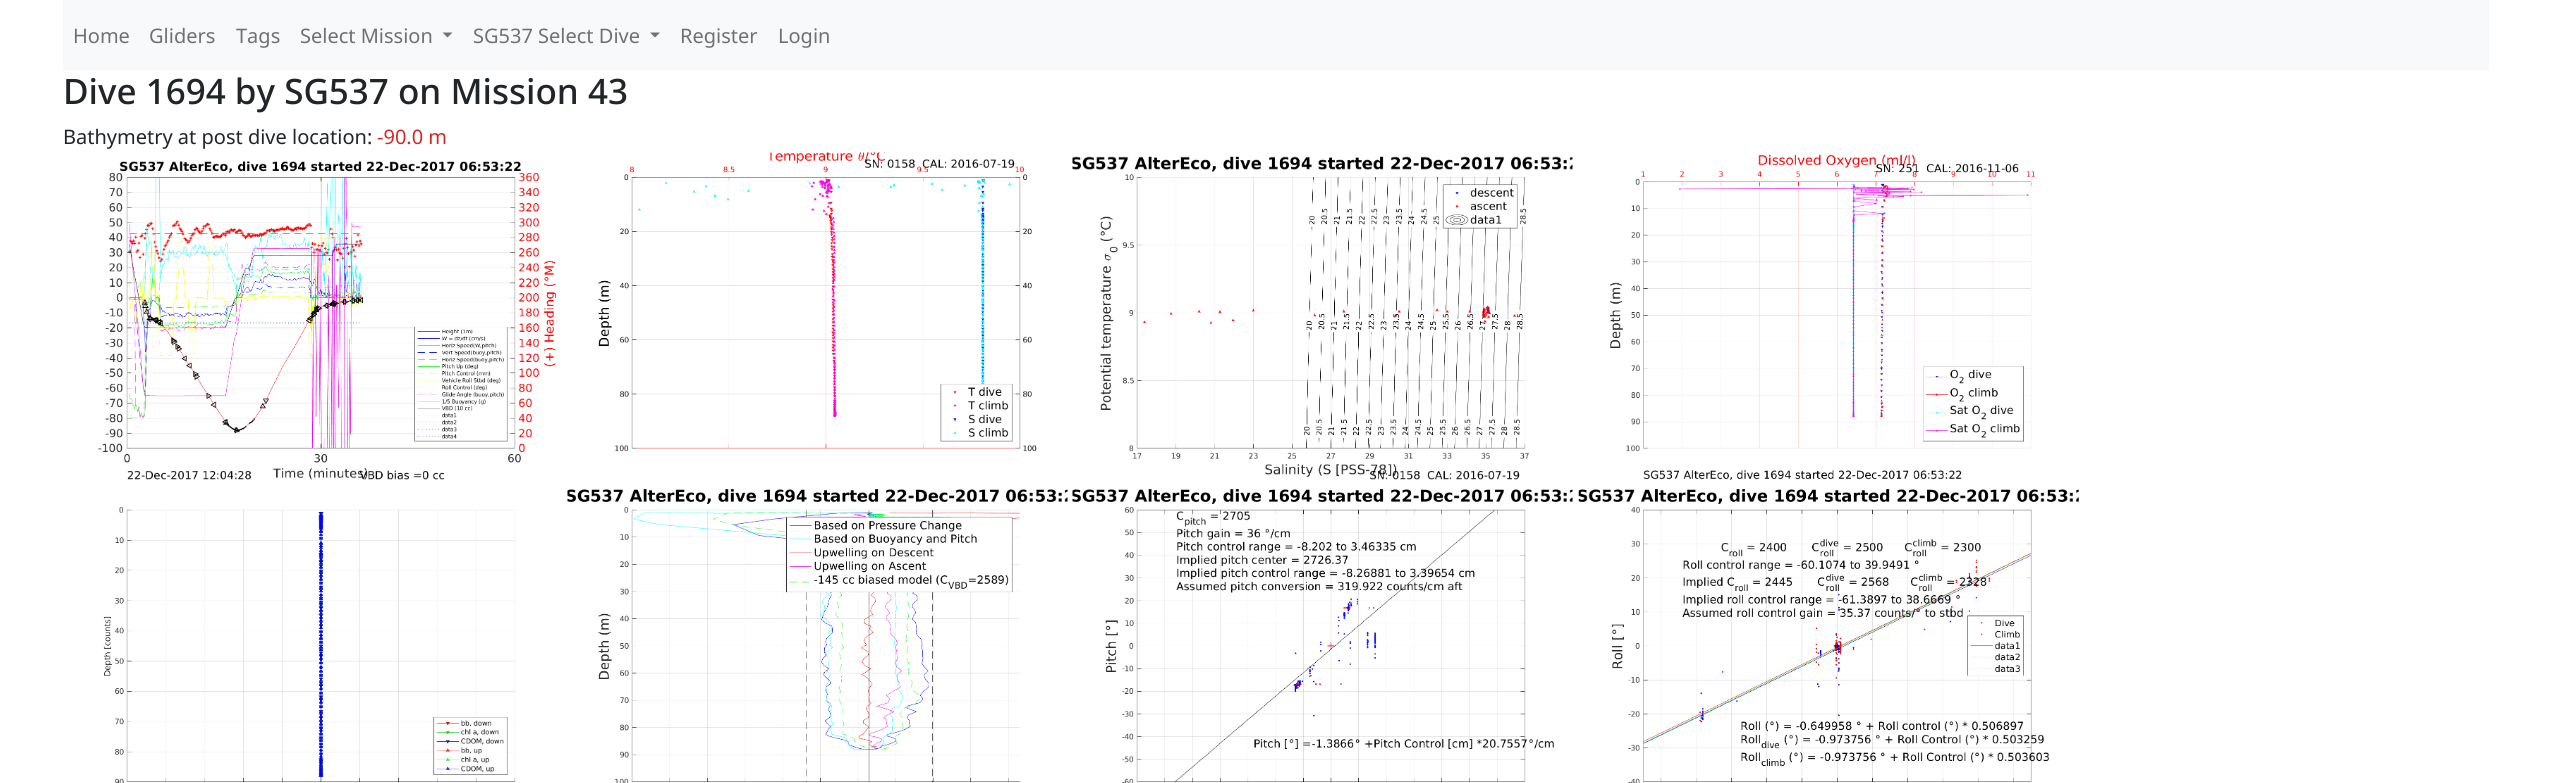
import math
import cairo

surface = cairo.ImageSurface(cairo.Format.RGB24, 2551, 783)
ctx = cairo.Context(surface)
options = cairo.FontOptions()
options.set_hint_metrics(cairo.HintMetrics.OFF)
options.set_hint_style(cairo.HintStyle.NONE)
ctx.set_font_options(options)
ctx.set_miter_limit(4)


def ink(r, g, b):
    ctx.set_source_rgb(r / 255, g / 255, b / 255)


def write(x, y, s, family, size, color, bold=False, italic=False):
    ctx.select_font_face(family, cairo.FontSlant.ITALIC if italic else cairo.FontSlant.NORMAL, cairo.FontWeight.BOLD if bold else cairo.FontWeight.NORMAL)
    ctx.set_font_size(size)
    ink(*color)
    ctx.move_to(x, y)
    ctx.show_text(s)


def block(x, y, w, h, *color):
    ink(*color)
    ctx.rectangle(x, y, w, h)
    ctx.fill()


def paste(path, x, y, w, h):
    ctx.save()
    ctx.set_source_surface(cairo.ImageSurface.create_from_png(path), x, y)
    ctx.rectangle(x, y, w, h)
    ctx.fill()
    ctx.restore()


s1 = dict(family="Noto Sans", size=20, color=(112, 112, 113))
s2 = dict(family="Noto Sans Medium", size=35, color=(33, 37, 41))
s3 = dict(family="Noto Sans", size=20, color=(33, 37, 41))
s4 = dict(family="Noto Sans", size=20, color=(217, 39, 39))

ink(255, 255, 255)
ctx.paint()
block(63, 0, 2426, 70, 248, 249, 250)
write(73, 43, "Home", **s1)
write(149, 43, "Gliders", **s1)
write(236, 43, "Tags", **s1)
write(300, 43, "Select Mission", **s1)
ctx.new_path()
ctx.move_to(442.5, 32.5)
ctx.line_to(452.5, 32.5)
ctx.line_to(447.5, 37.5)
ctx.close_path()
ctx.fill()
write(473, 43, "SG537 Select Dive", **s1)
ctx.new_path()
ctx.move_to(650, 32.5)
ctx.line_to(660, 32.5)
ctx.line_to(655, 37.5)
ctx.close_path()
ctx.fill()
write(680, 43, "Register", **s1)
write(778, 43, "Login", **s1)
write(63, 104, "Dive 1694 by SG537 on Mission 43", **s2)
write(63, 144, "Bathymetry at post dive location:", **s3)
write(377, 144, "-90.0 m", **s4)
paste("pic1.png", 98, 161, 459, 319)
paste("pic2.png", 598, 152, 439, 300)
paste("pic3.png", 1072, 156, 501, 324)
paste("pic4.png", 1609, 154, 426, 326)
paste("pic5.png", 103, 507, 413, 276)
paste("pic6.png", 567, 489, 501, 294)
paste("pic7.png", 1072, 489, 501, 294)
paste("pic8.png", 1578, 489, 501, 294)
surface.write_to_png("screenshot.png")
